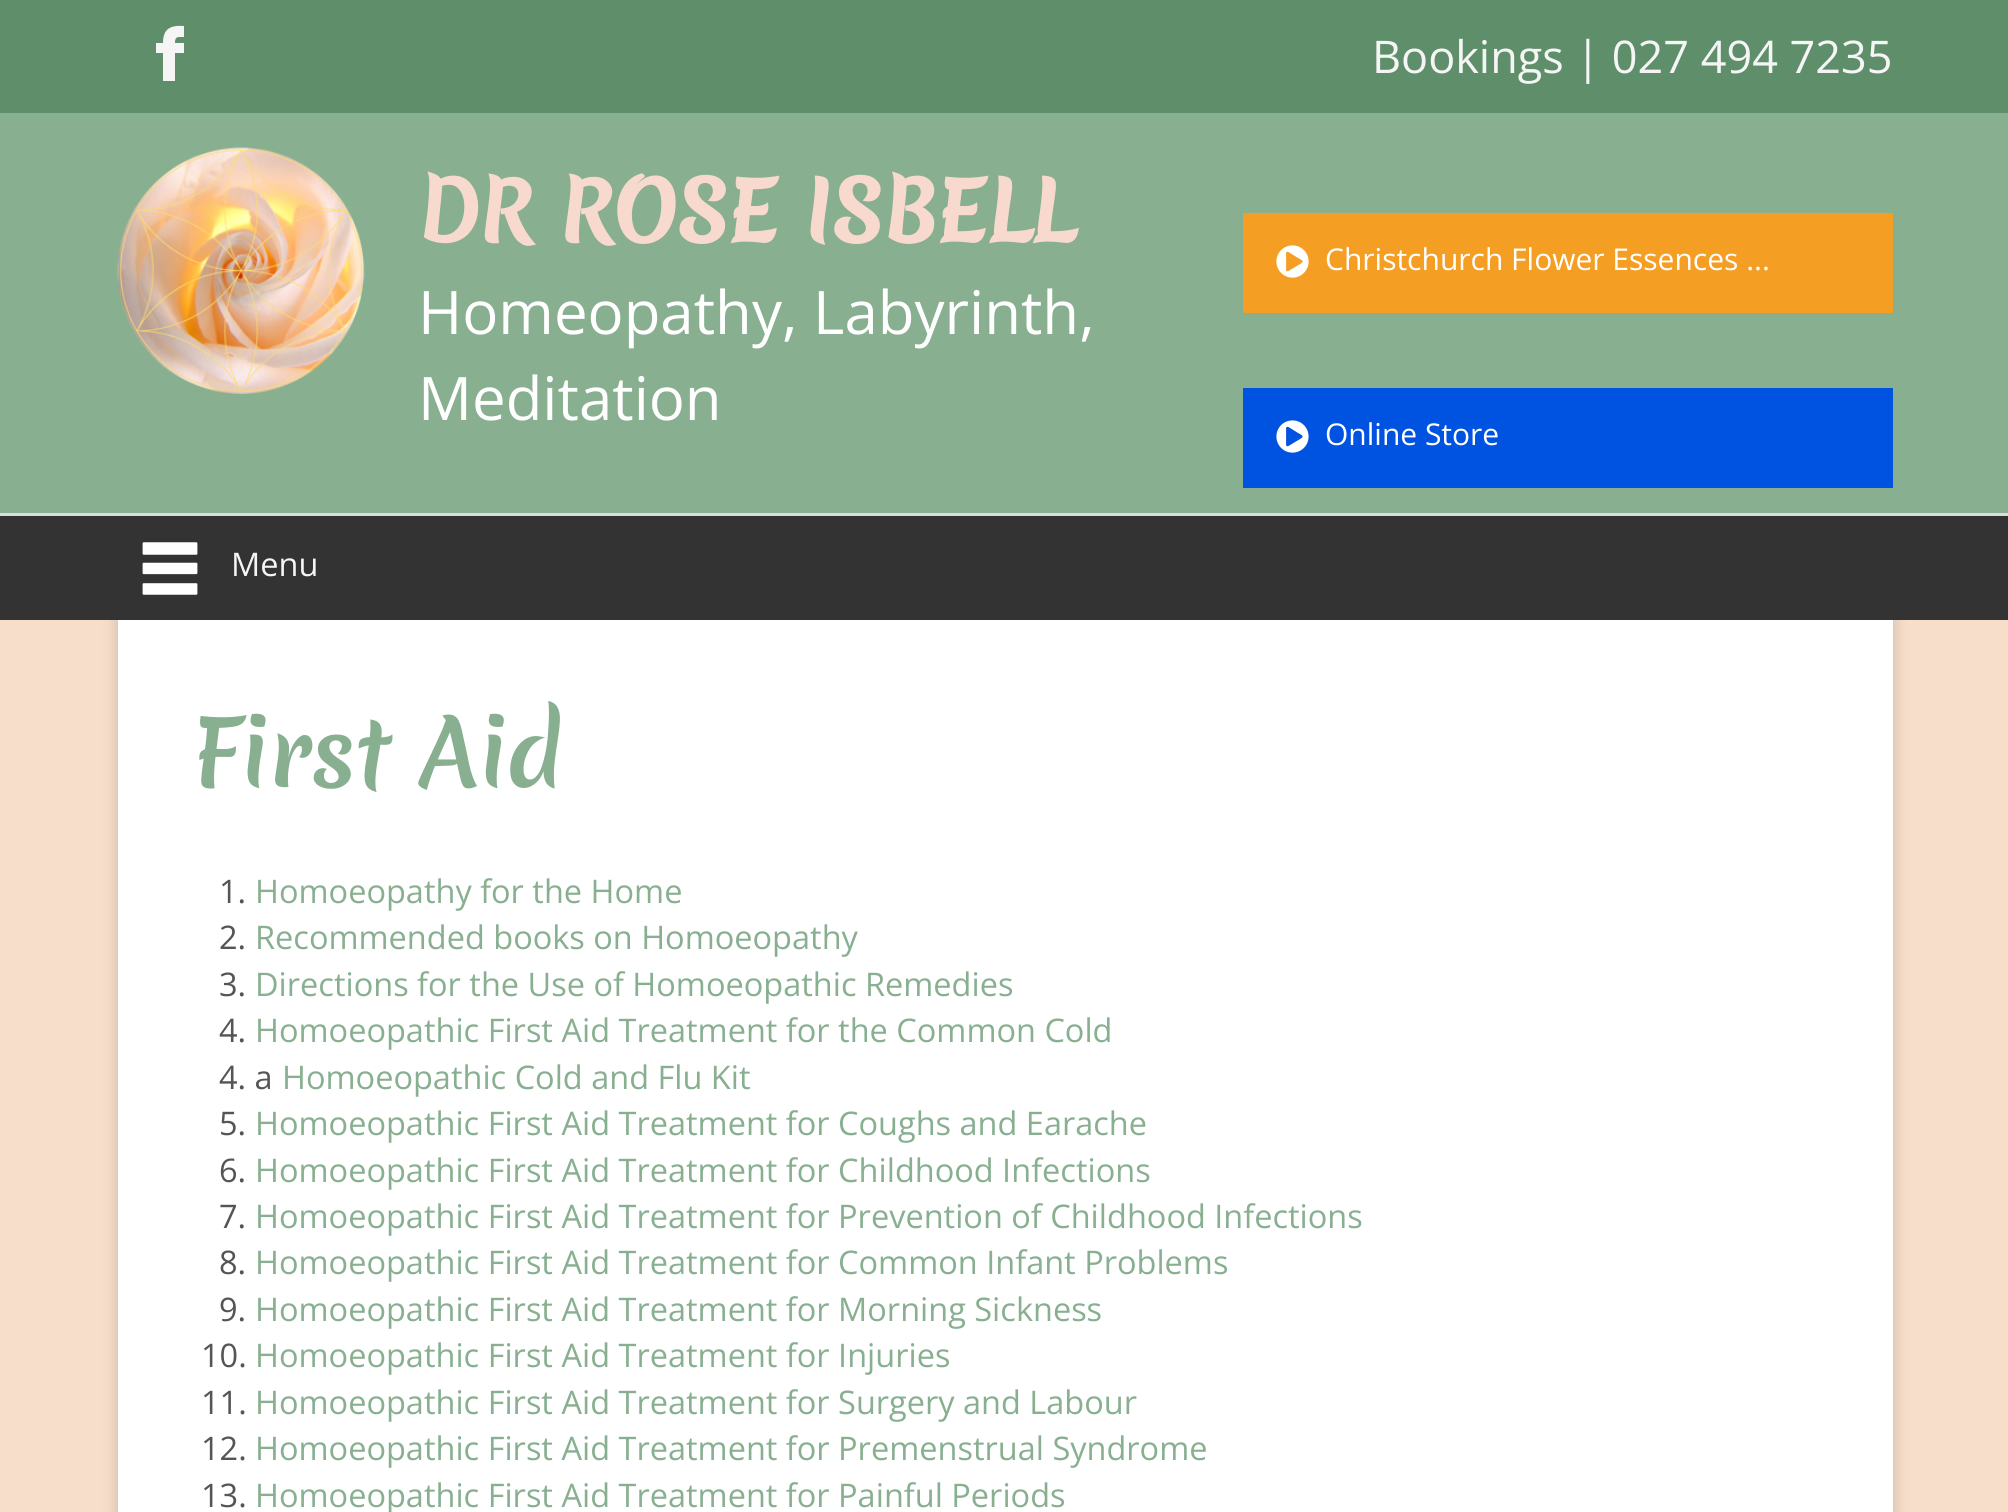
import math
import cairo

surface = cairo.ImageSurface(cairo.Format.RGB24, 2008, 1512)
ctx = cairo.Context(surface)
options = cairo.FontOptions()
options.set_hint_metrics(cairo.HintMetrics.OFF)
options.set_hint_style(cairo.HintStyle.NONE)
ctx.set_font_options(options)
ctx.set_miter_limit(4)


def ink(r, g, b):
    ctx.set_source_rgb(r / 255, g / 255, b / 255)


def write(x, y, s, family, size, color, bold=False, italic=False):
    ctx.select_font_face(family, cairo.FontSlant.ITALIC if italic else cairo.FontSlant.NORMAL, cairo.FontWeight.BOLD if bold else cairo.FontWeight.NORMAL)
    ctx.set_font_size(size)
    ink(*color)
    ctx.move_to(x, y)
    ctx.show_text(s)


def block(x, y, w, h, *color):
    ink(*color)
    ctx.rectangle(x, y, w, h)
    ctx.fill()


def round_path(x, y, w, h, r):
    ctx.new_sub_path()
    for i, (u, v) in enumerate([(x + w - r, y + h - r), (x + r, y + h - r), (x + r, y + r), (x + w - r, y + r)]):
        ctx.arc(u, v, r, i * math.pi / 2, (i + 1) * math.pi / 2)
    ctx.close_path()


def blur_box(x, y, w, h, r, blur, alpha):
    ctx.push_group_with_content(cairo.Content.ALPHA)
    ctx.set_operator(cairo.Operator.SOURCE)
    for i in range(15, -16, -2):
        e = blur * i / 6
        if min(w, h) + 2 * e > 0:
            ctx.set_source_rgba(0, 0, 0, alpha * math.erfc((i - 1) / 8.5) / 2)
            round_path(x - e, y - e, w + 2 * e, h + 2 * e, max(0, min(r + e + blur * .6, min(w, h) / 2 + e)))
            ctx.fill()
    ctx.mask(ctx.pop_group())


def paste(path, x, y, w, h):
    ctx.save()
    ctx.set_source_surface(cairo.ImageSurface.create_from_png(path), x, y)
    ctx.rectangle(x, y, w, h)
    ctx.fill()
    ctx.restore()


s1 = dict(family="Open Sans", size=45, color=(245, 245, 245))
s2 = dict(family="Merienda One", size=80, color=(247, 217, 206), bold=True)
s3 = dict(family="Open Sans", size=60, color=(255, 255, 255))
s4 = dict(family="Open Sans", size=30, color=(255, 255, 255))
s5 = dict(family="Open Sans", size=32.5, color=(245, 245, 245))
s6 = dict(family="Merienda One", size=90, color=(135, 175, 144))
s7 = dict(family="Open Sans", size=32.5, color=(85, 85, 85))
s8 = dict(family="Open Sans", size=32.5, color=(135, 175, 144))

ink(247, 222, 202)
ctx.paint()
block(0, 113, 2008, 400, 135, 175, 144)
block(0, 0, 2008, 113, 95, 143, 106)
ink(245, 245, 245)
ctx.new_path()
ctx.move_to(179, 37)
ctx.curve_to(175, 37, 175, 41, 175, 43)
ctx.line_to(184, 43)
ctx.line_to(184, 53)
ctx.line_to(175, 53)
ctx.line_to(175, 81)
ctx.line_to(163, 81)
ctx.line_to(163, 53)
ctx.line_to(156, 53)
ctx.line_to(156, 43)
ctx.line_to(163, 43)
ctx.curve_to(163, 29, 170, 25, 184, 26)
ctx.line_to(184, 37)
ctx.close_path()
ctx.fill()
write(1372, 73, "Bookings | 027 494 7235", **s1)
paste("pic1.png", 117, 147, 248, 247)
write(418, 242, "DR ROSE ISBELL", **s2)
write(418, 334, "Homeopathy, Labyrinth,", **s3)
write(418, 420, "Meditation", **s3)
block(1243, 213, 650, 100, 245, 158, 36)
paste("pic2.png", 1276, 245, 33, 33)
write(1325, 270, "Christchurch Flower Essences ...", **s4)
block(1243, 388, 650, 100, 0, 82, 224)
paste("pic3.png", 1276, 420, 33, 33)
write(1325, 445, "Online Store", **s4)
block(0, 516, 2008, 104, 51, 51, 51)
block(0, 513, 2008, 3, 221, 221, 221)
paste("pic4.png", 142, 542, 56, 53)
write(231, 576, "Menu", **s5)
ink(51, 51, 51)
blur_box(118, 620, 1775, 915, 0, 7.5, 0.25)
block(118, 620, 1775, 892, 255, 255, 255)
write(193, 787, "First Aid", **s6)
write(219, 903, "1.", **s7)
write(255, 903, "Homoeopathy for the Home", **s8)
write(219, 949, "2.", **s7)
write(255, 949, "Recommended books on Homoeopathy", **s8)
write(219, 996, "3.", **s7)
write(255, 996, "Directions for the Use of Homoeopathic Remedies", **s8)
write(219, 1042, "4.", **s7)
write(255, 1042, "Homoeopathic First Aid Treatment for the Common Cold", **s8)
write(219, 1089, "4. a", **s7)
write(282, 1089, "Homoeopathic Cold and Flu Kit", **s8)
write(219, 1135, "5.", **s7)
write(255, 1135, "Homoeopathic First Aid Treatment for Coughs and Earache", **s8)
write(219, 1182, "6.", **s7)
write(255, 1182, "Homoeopathic First Aid Treatment for Childhood Infections", **s8)
write(219, 1228, "7.", **s7)
write(255, 1228, "Homoeopathic First Aid Treatment for Prevention of Childhood Infections", **s8)
write(219, 1274, "8.", **s7)
write(255, 1274, "Homoeopathic First Aid Treatment for Common Infant Problems", **s8)
write(219, 1321, "9.", **s7)
write(255, 1321, "Homoeopathic First Aid Treatment for Morning Sickness", **s8)
write(201, 1367, "10.", **s7)
write(255, 1367, "Homoeopathic First Aid Treatment for Injuries", **s8)
write(201, 1414, "11.", **s7)
write(255, 1414, "Homoeopathic First Aid Treatment for Surgery and Labour", **s8)
write(201, 1460, "12.", **s7)
write(255, 1460, "Homoeopathic First Aid Treatment for Premenstrual Syndrome", **s8)
write(201, 1507, "13.", **s7)
write(255, 1507, "Homoeopathic First Aid Treatment for Painful Periods", **s8)
surface.write_to_png("screenshot.png")
